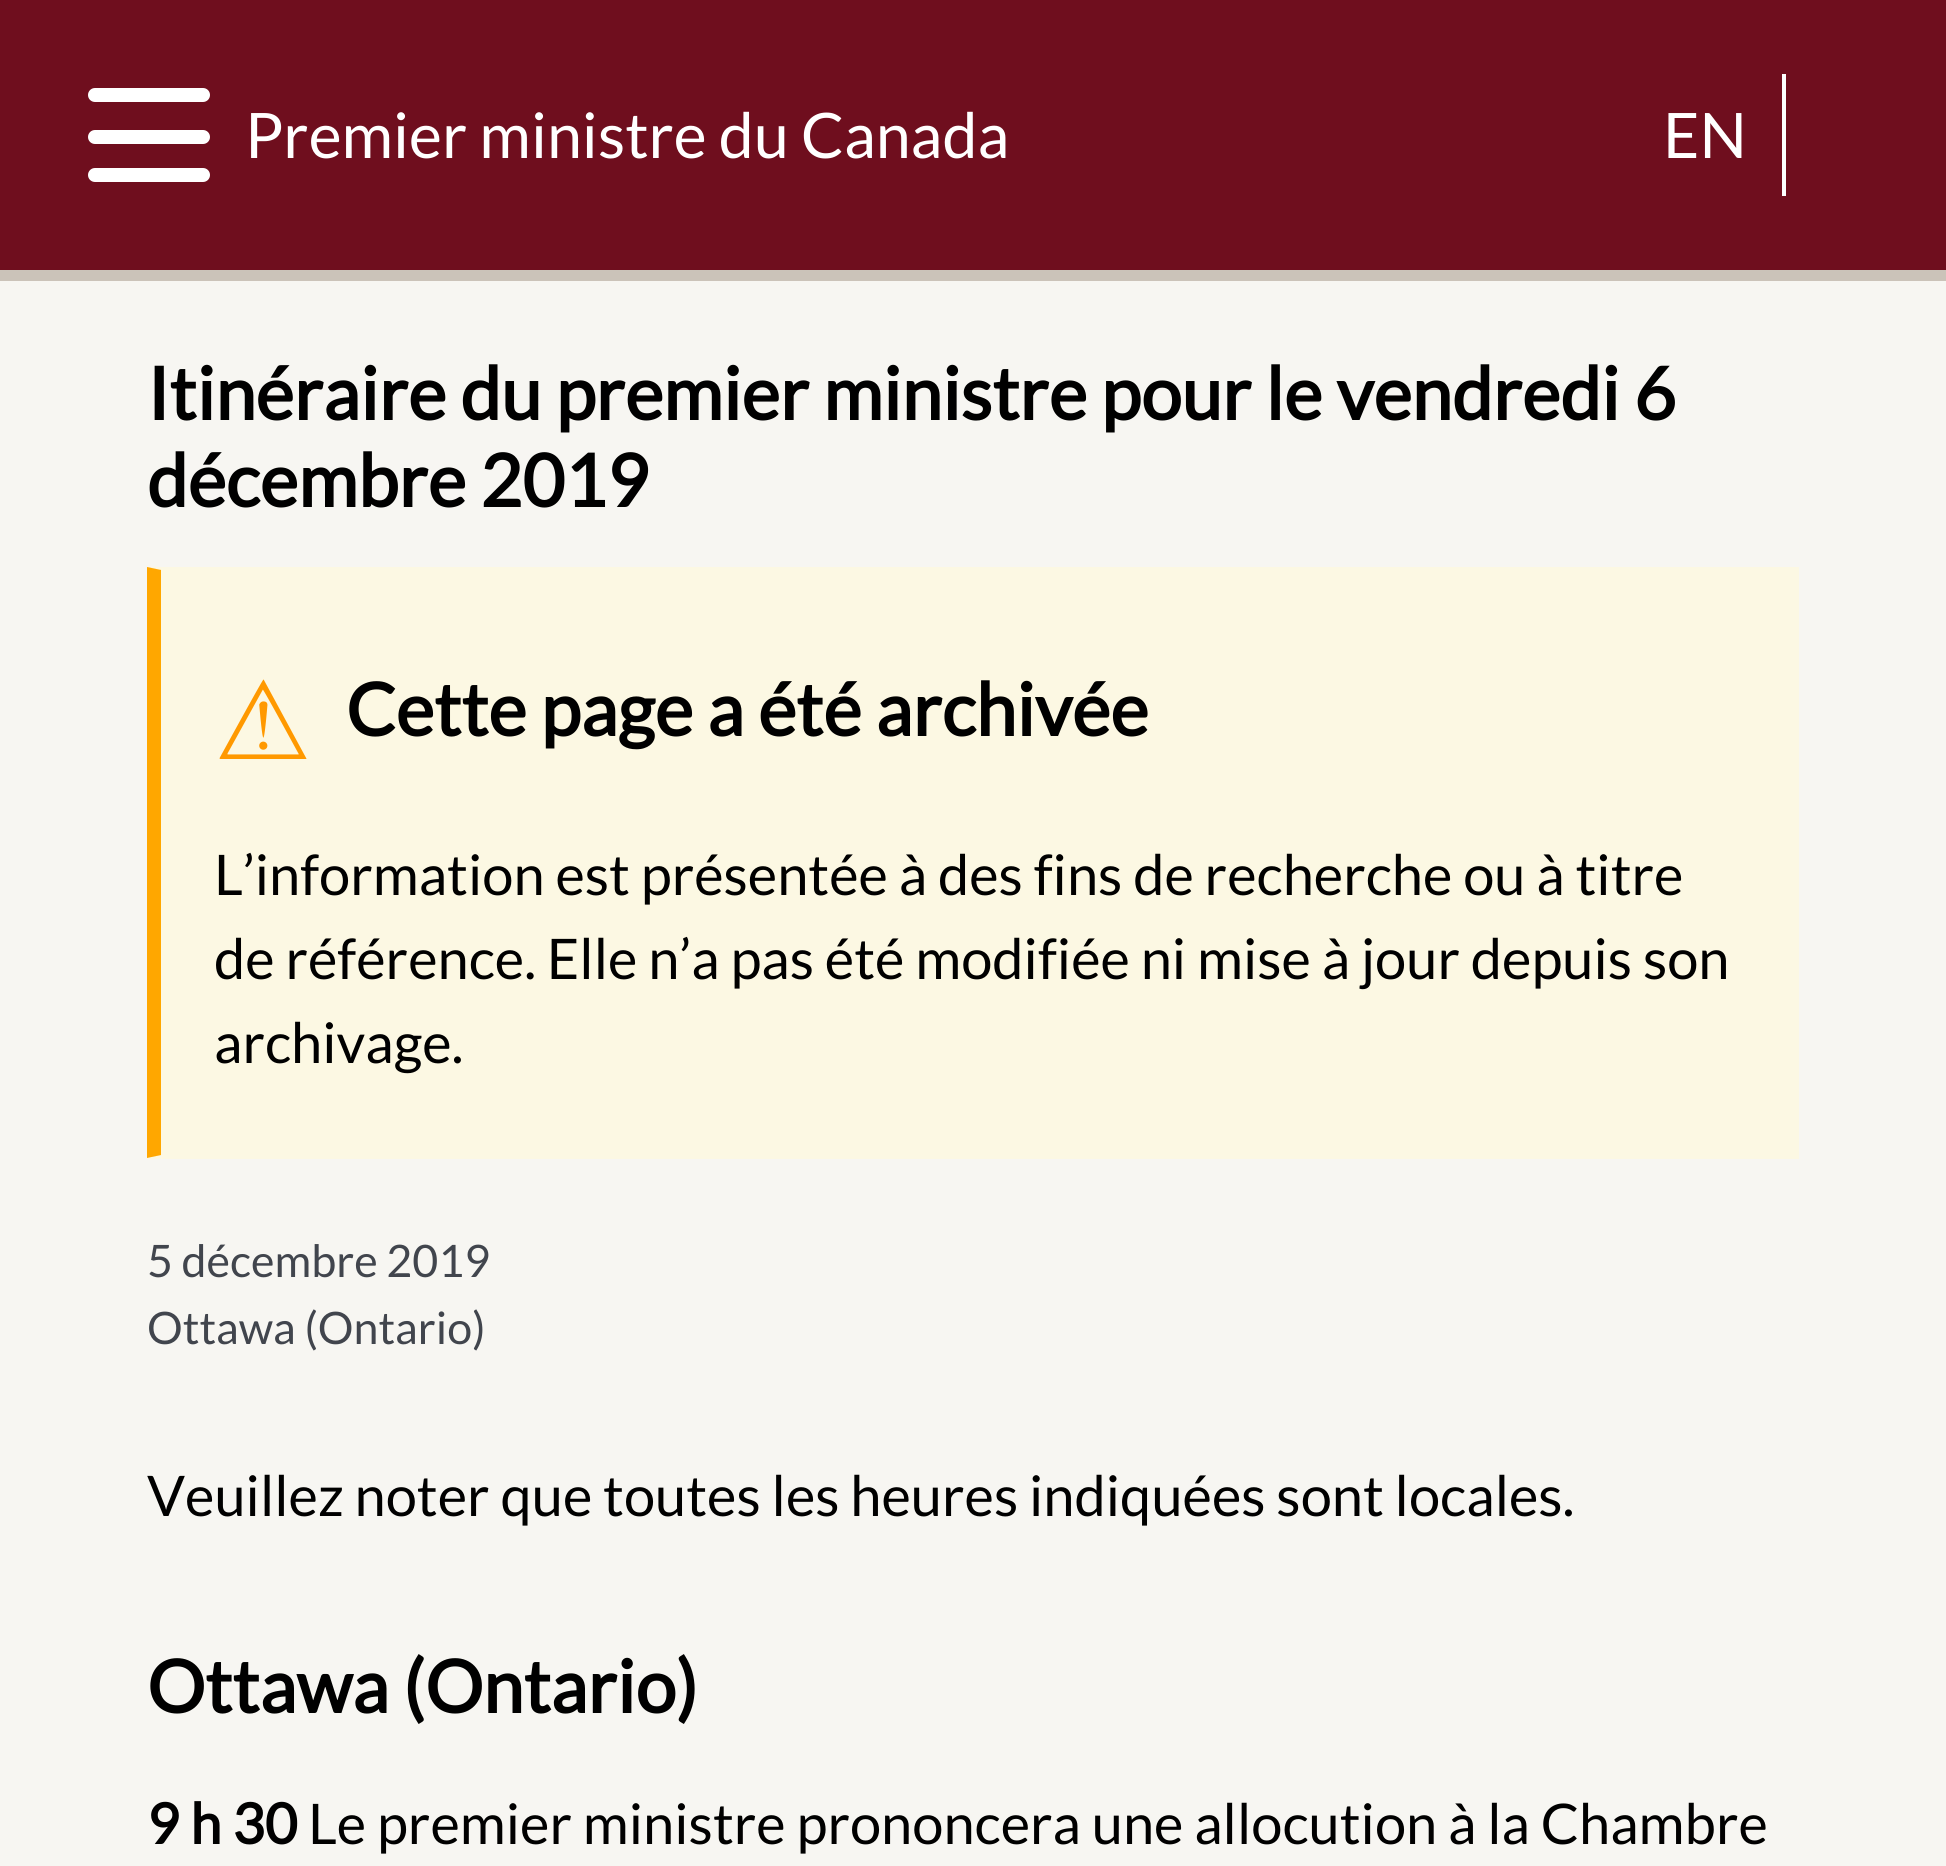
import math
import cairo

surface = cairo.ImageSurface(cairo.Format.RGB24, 1946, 1866)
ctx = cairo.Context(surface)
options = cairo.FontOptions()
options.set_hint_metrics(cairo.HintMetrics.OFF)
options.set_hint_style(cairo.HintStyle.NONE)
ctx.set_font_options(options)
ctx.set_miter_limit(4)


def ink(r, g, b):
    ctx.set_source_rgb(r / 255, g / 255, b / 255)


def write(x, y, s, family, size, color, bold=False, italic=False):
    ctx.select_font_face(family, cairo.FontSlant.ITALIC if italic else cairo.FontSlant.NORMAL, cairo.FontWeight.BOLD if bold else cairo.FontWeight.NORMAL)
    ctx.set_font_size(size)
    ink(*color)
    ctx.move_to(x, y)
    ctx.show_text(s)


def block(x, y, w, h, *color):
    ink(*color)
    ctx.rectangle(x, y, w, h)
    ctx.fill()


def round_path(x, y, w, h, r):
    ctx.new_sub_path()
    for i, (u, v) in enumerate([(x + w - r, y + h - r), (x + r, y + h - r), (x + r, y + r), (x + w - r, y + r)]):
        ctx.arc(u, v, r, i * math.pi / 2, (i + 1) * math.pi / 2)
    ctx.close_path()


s1 = dict(family="Lato", size=62.75, color=(255, 255, 255))
s2 = dict(family="Lato", size=72.8, color=(0, 0, 0), bold=True)
s3 = dict(family="DejaVu Sans", size=109, color=(255, 153, 0))
s4 = dict(family="Lato", size=56, color=(0, 0, 0))
s5 = dict(family="Lato", size=44.75, color=(65, 69, 77))
s6 = dict(family="Lato", size=56, color=(0, 0, 0), bold=True)

ink(247, 246, 242)
ctx.paint()
block(0, 0, 1946, 270, 111, 14, 30)
block(0, 270, 1946, 11, 203, 195, 185)
ink(255, 255, 255)
round_path(88, 88, 122, 14, 7)
ctx.fill()
round_path(88, 130, 122, 14, 7)
ctx.fill()
round_path(88, 168, 122, 14, 7)
ctx.fill()
write(245, 158, "Premier ministre du Canada", **s1)
block(1782, 74, 4, 122, 255, 255, 255)
write(1663, 158, "EN", **s1)
write(147, 420, "Itinéraire du premier ministre pour le vendredi 6", **s2)
write(147, 507, "décembre 2019", **s2)
block(147, 567, 1652, 592, 252, 248, 227)
ink(255, 167, 0)
ctx.new_path()
ctx.move_to(147, 1158)
ctx.line_to(147, 567)
ctx.line_to(161, 570)
ctx.line_to(161, 1155)
ctx.close_path()
ctx.fill()
write(214, 759, "⚠", **s3)
write(346, 736, "Cette page a été archivée", **s2)
write(214, 895, "L’information est présentée à des fins de recherche ou à titre", **s4)
write(214, 979, "de référence. Elle n’a pas été modifiée ni mise à jour depuis son", **s4)
write(214, 1063, "archivage.", **s4)
write(147, 1277, "5 décembre 2019", **s5)
write(147, 1344, "Ottawa (Ontario)", **s5)
write(147, 1516, "Veuillez noter que toutes les heures indiquées sont locales.", **s4)
write(147, 1713, "Ottawa (Ontario)", **s2)
write(147, 1844, "9 h 30", **s6)
write(308, 1844, "Le premier ministre prononcera une allocution à la Chambre", **s4)
surface.write_to_png("screenshot.png")
